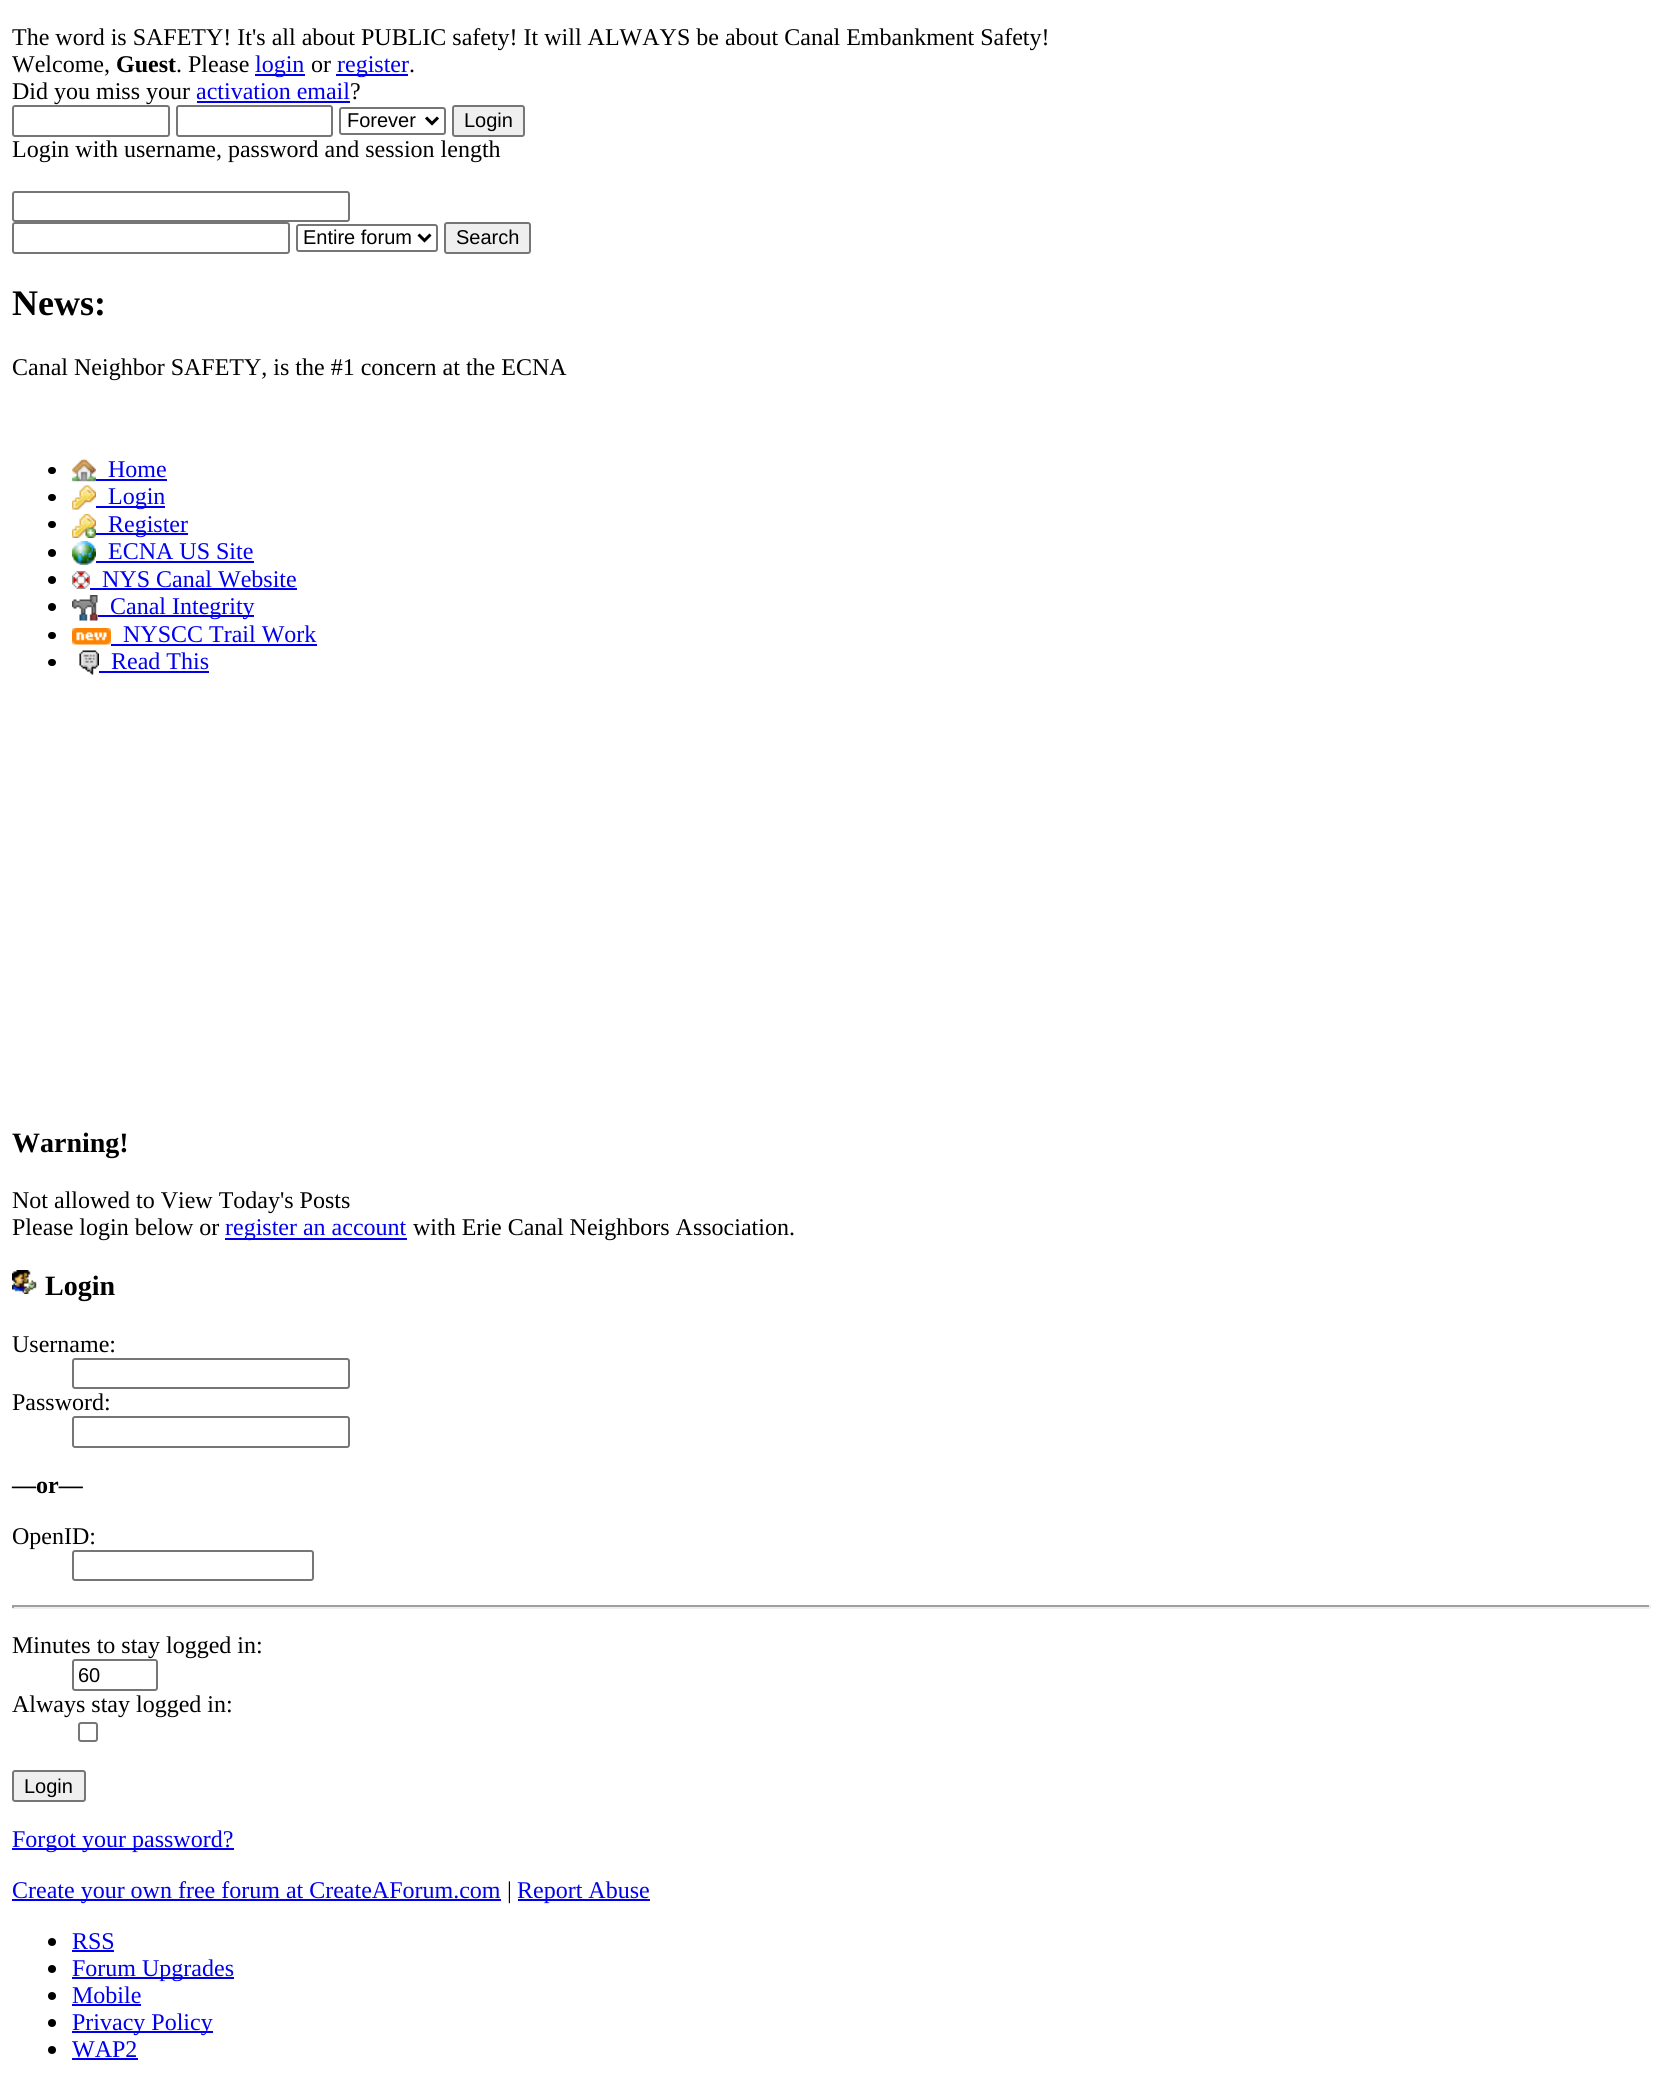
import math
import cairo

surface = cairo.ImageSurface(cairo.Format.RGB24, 1662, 2086)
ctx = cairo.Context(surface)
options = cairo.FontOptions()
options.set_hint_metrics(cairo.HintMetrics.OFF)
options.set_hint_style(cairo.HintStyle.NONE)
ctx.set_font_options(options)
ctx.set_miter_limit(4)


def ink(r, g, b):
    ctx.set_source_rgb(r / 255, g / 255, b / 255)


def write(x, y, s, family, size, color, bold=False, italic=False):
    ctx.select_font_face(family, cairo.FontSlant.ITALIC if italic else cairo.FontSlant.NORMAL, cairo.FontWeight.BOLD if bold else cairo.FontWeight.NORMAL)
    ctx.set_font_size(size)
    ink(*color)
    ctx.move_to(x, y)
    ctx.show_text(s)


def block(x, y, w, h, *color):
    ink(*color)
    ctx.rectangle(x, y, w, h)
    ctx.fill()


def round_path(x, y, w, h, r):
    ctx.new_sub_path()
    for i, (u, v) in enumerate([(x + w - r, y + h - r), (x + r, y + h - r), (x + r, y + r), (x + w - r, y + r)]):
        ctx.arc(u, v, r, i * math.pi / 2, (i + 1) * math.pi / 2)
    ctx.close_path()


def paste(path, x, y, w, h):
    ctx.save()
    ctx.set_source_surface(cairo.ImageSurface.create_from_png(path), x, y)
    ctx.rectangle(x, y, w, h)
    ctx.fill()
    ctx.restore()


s1 = dict(family="Liberation Serif", size=24, color=(0, 0, 0))
s2 = dict(family="Liberation Serif", size=24, color=(0, 0, 0), bold=True)
s3 = dict(family="Liberation Serif", size=24, color=(0, 0, 238))
s4 = dict(family="Liberation Sans", size=20, color=(0, 0, 0))
s5 = dict(family="Liberation Serif", size=36, color=(0, 0, 0), bold=True)
s6 = dict(family="Liberation Serif", size=28, color=(0, 0, 0), bold=True)

ink(255, 255, 255)
ctx.paint()
write(12, 45, "The word is SAFETY! It's all about PUBLIC safety! It will ALWAYS be about Canal Embankment Safety!", **s1)
write(12, 72, "Welcome,", **s1)
write(116, 72, "Guest", **s2)
write(176, 72, ". Please", **s1)
block(255, 74, 50, 2, 0, 0, 238)
write(255, 72, "login", **s3)
write(311, 72, "or", **s1)
block(336, 74, 72, 2, 0, 0, 238)
write(337, 72, "register", **s3)
write(409, 72, ".", **s1)
write(12, 99, "Did you miss your", **s1)
write(196, 99, "activation email", **s3)
block(197, 101, 153, 2, 0, 0, 238)
write(350, 99, "?", **s1)
round_path(13, 106, 156, 30, 2)
ink(118, 118, 118)
ctx.stroke()
round_path(177, 106, 155, 30, 2)
ctx.stroke()
round_path(340, 108, 105, 26, 2)
ctx.stroke()
ctx.new_path()
ctx.move_to(426, 117.5)
ctx.line_to(432, 123.5)
ctx.line_to(438, 117.5)
ink(0, 0, 0)
ctx.set_line_width(3)
ctx.stroke()
write(347, 127, "Forever", **s4)
ink(239, 239, 239)
round_path(453, 106, 71, 30, 2)
ctx.fill_preserve()
ink(118, 118, 118)
ctx.set_line_width(2)
ctx.stroke()
write(464, 127, "Login", **s4)
write(12, 157, "Login with username, password and session length", **s1)
round_path(13, 192, 336, 29, 2)
ink(118, 118, 118)
ctx.stroke()
round_path(13, 223, 276, 30, 2)
ctx.stroke()
round_path(297, 225, 140, 26, 2)
ctx.stroke()
ctx.new_path()
ctx.move_to(418.5, 234.5)
ctx.line_to(424.5, 240.5)
ctx.line_to(430.5, 234.5)
ink(0, 0, 0)
ctx.set_line_width(3)
ctx.stroke()
write(303, 244, "Entire forum", **s4)
ink(239, 239, 239)
round_path(445, 223, 85, 30, 2)
ctx.fill_preserve()
ink(118, 118, 118)
ctx.set_line_width(2)
ctx.stroke()
write(456, 244, "Search", **s4)
write(12, 315, "News:", **s5)
write(12, 375, "Canal Neighbor SAFETY, is the #1 concern at the ECNA", **s1)
round_path(48, 467, 8, 7, 3.5)
ctx.fill()
paste("pic1.png", 72, 458, 24, 24)
write(108, 477, "Home", **s3)
block(96, 479, 71, 2, 0, 0, 238)
ink(0, 0, 0)
round_path(48, 494, 8, 7, 3.5)
ctx.fill()
paste("pic2.png", 72, 485, 24, 25)
block(96, 506, 69, 2, 0, 0, 238)
write(108, 504, "Login", **s3)
ink(0, 0, 0)
round_path(48, 521, 8, 7, 3.5)
ctx.fill()
paste("pic3.png", 72, 514, 24, 24)
block(96, 533, 92, 2, 0, 0, 238)
write(108, 532, "Register", **s3)
ink(0, 0, 0)
ctx.new_path()
ctx.arc(52, 553, 4, 0, 2 * math.pi)
ctx.fill()
paste("pic4.png", 72, 541, 24, 24)
write(108, 559, "ECNA US Site", **s3)
block(96, 561, 158, 2, 0, 0, 238)
ink(0, 0, 0)
ctx.new_path()
ctx.arc(52, 580, 4, 0, 2 * math.pi)
ctx.fill()
paste("pic5.png", 72, 571, 18, 18)
write(102, 587, "NYS Canal Website", **s3)
block(90, 588, 207, 2, 0, 0, 238)
ink(0, 0, 0)
ctx.new_path()
ctx.arc(52, 607, 4, 0, 2 * math.pi)
ctx.fill()
paste("pic6.png", 72, 595, 26, 26)
block(98, 615, 156, 2, 0, 0, 238)
write(110, 614, "Canal Integrity", **s3)
ink(0, 0, 0)
round_path(48, 632, 8, 7, 3.5)
ctx.fill()
paste("pic7.png", 72, 628, 39, 17)
write(123, 642, "NYSCC Trail Work", **s3)
block(111, 644, 206, 2, 0, 0, 238)
ink(0, 0, 0)
round_path(48, 659, 8, 7, 3.5)
ctx.fill()
paste("pic8.png", 79, 650, 20, 25)
write(111, 669, "Read This", **s3)
block(99, 671, 110, 2, 0, 0, 238)
write(12, 1152, "Warning!", **s6)
write(12, 1208, "Not allowed to View Today's Posts", **s1)
write(12, 1235, "Please login below or", **s1)
block(225, 1238, 182, 2, 0, 0, 238)
write(225, 1235, "register an account", **s3)
write(413, 1235, "with Erie Canal Neighbors Association.", **s1)
paste("pic9.png", 12, 1270, 25, 24)
write(45, 1295, "Login", **s6)
write(12, 1352, "Username:", **s1)
round_path(73, 1359, 276, 29, 2)
ink(118, 118, 118)
ctx.stroke()
write(12, 1410, "Password:", **s1)
round_path(73, 1417, 276, 30, 2)
ink(118, 118, 118)
ctx.stroke()
write(12, 1493, "—or—", **s2)
write(12, 1544, "OpenID:", **s1)
round_path(73, 1551, 240, 29, 2)
ink(118, 118, 118)
ctx.stroke()
block(12, 1605, 1638, 2, 159, 159, 159)
block(1649, 1605, 2, 3, 238, 238, 238)
block(12, 1607, 1638, 2, 238, 238, 238)
block(12, 1605, 2, 3, 159, 159, 159)
write(12, 1653, "Minutes to stay logged in:", **s1)
round_path(73, 1660, 84, 30, 2)
ink(118, 118, 118)
ctx.stroke()
write(78, 1682, "60", **s4)
write(12, 1712, "Always stay logged in:", **s1)
round_path(79, 1723, 18, 18, 2)
ink(118, 118, 118)
ctx.stroke()
ink(239, 239, 239)
round_path(13, 1771, 72, 30, 2)
ctx.fill_preserve()
ink(118, 118, 118)
ctx.stroke()
write(24, 1793, "Login", **s4)
block(12, 1848, 222, 2, 0, 0, 238)
write(12, 1847, "Forgot your password?", **s3)
block(12, 1899, 489, 2, 0, 0, 238)
write(12, 1898, "Create your own free forum at CreateAForum.com", **s3)
write(507, 1898, "|", **s1)
block(518, 1899, 132, 2, 0, 0, 238)
write(517, 1898, "Report Abuse", **s3)
ink(0, 0, 0)
ctx.new_path()
ctx.arc(52, 1942, 4, 0, 2 * math.pi)
ctx.fill()
write(72, 1949, "RSS", **s3)
block(72, 1950, 42, 2, 0, 0, 238)
ink(0, 0, 0)
ctx.new_path()
ctx.arc(52, 1969, 4, 0, 2 * math.pi)
ctx.fill()
block(72, 1977, 162, 2, 0, 0, 238)
write(72, 1976, "Forum Upgrades", **s3)
ink(0, 0, 0)
ctx.new_path()
ctx.arc(52, 1996, 4, 0, 2 * math.pi)
ctx.fill()
write(72, 2003, "Mobile", **s3)
block(72, 2004, 69, 2, 0, 0, 238)
ink(0, 0, 0)
ctx.new_path()
ctx.arc(52, 2023, 4, 0, 2 * math.pi)
ctx.fill()
block(72, 2031, 141, 2, 0, 0, 238)
write(72, 2030, "Privacy Policy", **s3)
ink(0, 0, 0)
ctx.new_path()
ctx.arc(52, 2050, 4, 0, 2 * math.pi)
ctx.fill()
write(72, 2057, "WAP2", **s3)
block(72, 2058, 66, 2, 0, 0, 238)
surface.write_to_png("screenshot.png")
